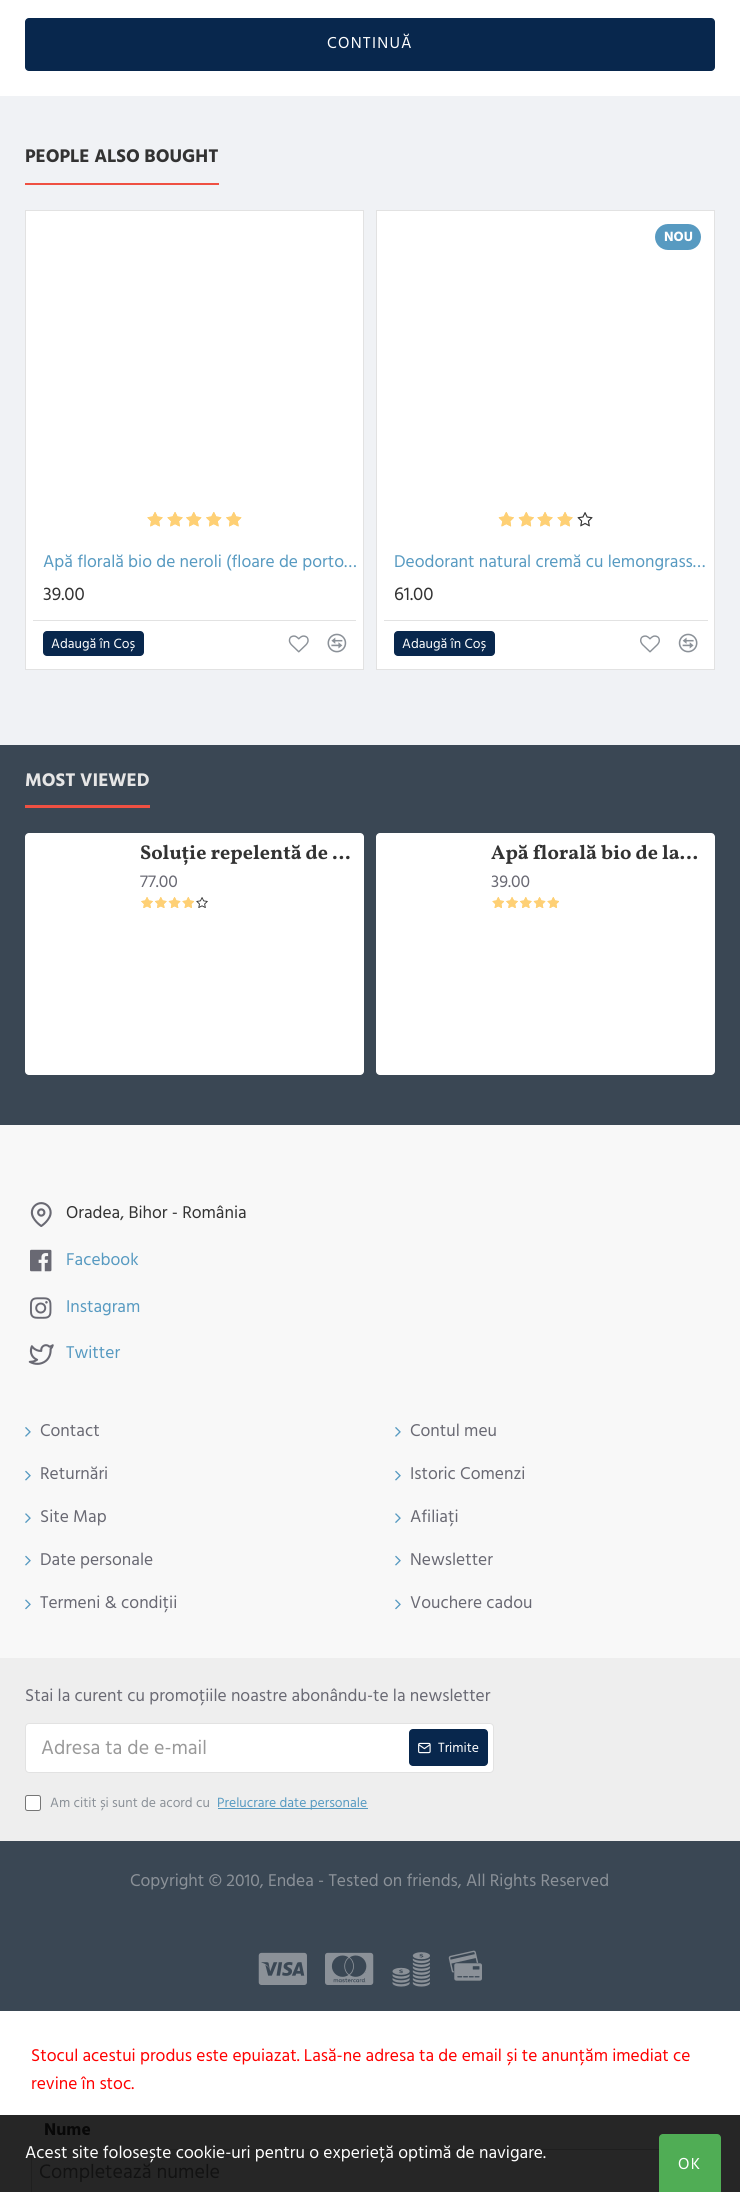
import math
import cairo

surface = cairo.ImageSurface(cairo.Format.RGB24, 740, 2192)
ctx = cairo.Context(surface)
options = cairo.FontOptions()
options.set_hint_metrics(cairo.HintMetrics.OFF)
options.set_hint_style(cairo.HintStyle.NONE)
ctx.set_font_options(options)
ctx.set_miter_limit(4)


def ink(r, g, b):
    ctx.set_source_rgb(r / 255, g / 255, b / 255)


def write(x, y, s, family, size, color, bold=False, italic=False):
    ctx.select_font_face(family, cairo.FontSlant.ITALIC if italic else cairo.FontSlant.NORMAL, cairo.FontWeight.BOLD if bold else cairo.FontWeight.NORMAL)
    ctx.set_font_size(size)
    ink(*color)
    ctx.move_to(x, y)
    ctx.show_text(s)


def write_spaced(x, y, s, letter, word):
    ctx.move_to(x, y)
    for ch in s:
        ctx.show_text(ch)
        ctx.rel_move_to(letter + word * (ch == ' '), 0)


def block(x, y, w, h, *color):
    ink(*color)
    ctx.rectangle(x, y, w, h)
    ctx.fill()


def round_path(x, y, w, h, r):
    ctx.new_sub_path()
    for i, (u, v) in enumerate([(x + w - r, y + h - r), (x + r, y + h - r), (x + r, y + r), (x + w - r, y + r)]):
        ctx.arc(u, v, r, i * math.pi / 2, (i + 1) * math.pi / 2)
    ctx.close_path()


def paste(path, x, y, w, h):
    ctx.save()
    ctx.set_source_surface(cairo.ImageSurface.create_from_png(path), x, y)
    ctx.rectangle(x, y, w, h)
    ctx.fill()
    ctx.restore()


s1 = dict(family="Hind Madurai", size=18.75, color=(51, 51, 51), bold=True)
s2 = dict(family="Hind Madurai", size=17.5, color=(87, 154, 193))
s3 = dict(family="Hind Madurai", size=18.75, color=(51, 51, 51))
s4 = dict(family="Hind Madurai", size=13.75, color=(255, 255, 255))
s5 = dict(family="Hind Madurai", size=13.75, color=(255, 255, 255), bold=True)
s6 = dict(family="Hind Madurai", size=18.75, color=(230, 230, 230), bold=True)
s7 = dict(family="Vollkorn", size=20, color=(51, 51, 51), bold=True)
s8 = dict(family="Hind Madurai", size=17.5, color=(105, 105, 115))
s9 = dict(family="Hind Madurai", size=17.5, color=(51, 51, 51))
s10 = dict(family="Hind Madurai", size=20, color=(153, 153, 153))
s11 = dict(family="Hind Madurai", size=13.75, color=(139, 145, 152))
s12 = dict(family="Hind Madurai", size=13.75, color=(87, 154, 193))
s13 = dict(family="Hind Madurai", size=17.5, color=(139, 145, 152))
s14 = dict(family="Hind Madurai", size=17.5, color=(255, 0, 0))
s15 = dict(family="Hind Madurai", size=17.5, color=(8, 8, 8), bold=True)
s16 = dict(family="Hind Madurai", size=20, color=(18, 18, 18))
s17 = dict(family="Hind Madurai", size=17.5, color=(255, 255, 255))

ink(255, 255, 255)
ctx.paint()
block(0, 2115, 740, 77, 38, 38, 38)
ink(8, 39, 77)
round_path(25, 18, 690, 53, 4)
ctx.fill()
ctx.select_font_face("Hind Madurai")
ctx.set_font_size(16.25)
ink(255, 255, 255)
write_spaced(327, 48, "CONTINUĂ", 1.25, 0)
block(0, 96, 740, 649, 240, 242, 245)
block(25, 183, 194, 2, 239, 80, 66)
write(25, 162, "PEOPLE ALSO BOUGHT", **s1)
ink(255, 255, 255)
ctx.rectangle(25.5, 210.5, 338, 459)
ctx.fill_preserve()
ink(226, 226, 226)
ctx.set_line_width(1)
ctx.stroke()
paste("pic1.png", 147, 512, 16, 15)
paste("pic2.png", 147, 512, 16, 15)
paste("pic1.png", 167, 512, 16, 15)
paste("pic2.png", 167, 512, 16, 15)
paste("pic3.png", 186, 512, 16, 15)
paste("pic4.png", 186, 512, 16, 15)
paste("pic3.png", 206, 512, 16, 15)
paste("pic4.png", 206, 512, 16, 15)
paste("pic3.png", 226, 512, 16, 15)
paste("pic4.png", 226, 512, 16, 15)
write(43, 567, "Apă florală bio de neroli (floare de porto…", **s2)
write(43, 600, "39.00", **s3)
block(33, 620, 323, 1, 226, 226, 226)
ink(8, 39, 77)
round_path(43, 631, 101, 25, 4)
ctx.fill()
write(51, 648, "Adaugă în Coș", **s4)
paste("pic5.png", 288, 635, 21, 18)
paste("pic6.png", 327, 633, 20, 20)
ctx.rectangle(376.5, 210.5, 338, 459)
ctx.fill_preserve()
ink(226, 226, 226)
ctx.stroke()
ink(87, 154, 193)
round_path(655, 224, 46, 26, 13)
ctx.fill()
write(664, 241, "NOU", **s5)
paste("pic7.png", 498, 512, 16, 15)
paste("pic8.png", 498, 512, 16, 15)
paste("pic7.png", 518, 512, 16, 15)
paste("pic8.png", 518, 512, 16, 15)
paste("pic1.png", 537, 512, 16, 15)
paste("pic2.png", 537, 512, 16, 15)
paste("pic1.png", 557, 512, 16, 15)
paste("pic2.png", 557, 512, 16, 15)
paste("pic9.png", 577, 512, 16, 15)
write(394, 567, "Deodorant natural cremă cu lemongrass…", **s2)
write(394, 600, "61.00", **s3)
block(384, 620, 324, 1, 226, 226, 226)
ink(8, 39, 77)
round_path(394, 631, 101, 25, 4)
ctx.fill()
write(402, 648, "Adaugă în Coș", **s4)
paste("pic10.png", 640, 635, 20, 18)
paste("pic11.png", 678, 633, 20, 20)
block(0, 1125, 740, 533, 248, 248, 248)
block(0, 745, 740, 380, 58, 71, 84)
block(25, 805, 125, 3, 239, 80, 66)
write(25, 786, "MOST VIEWED", **s6)
ink(255, 255, 255)
round_path(25, 833, 339, 242, 4)
ctx.fill()
write(140, 859, "Soluție repelentă de …", **s7)
write(140, 887, "77.00", **s8)
paste("pic12.png", 141, 897, 12, 11)
paste("pic13.png", 141, 897, 12, 11)
paste("pic14.png", 155, 897, 12, 11)
paste("pic15.png", 155, 897, 12, 11)
paste("pic16.png", 168, 897, 13, 11)
paste("pic17.png", 168, 897, 13, 11)
paste("pic18.png", 182, 897, 12, 11)
paste("pic19.png", 182, 897, 12, 11)
paste("pic20.png", 196, 897, 12, 11)
ink(255, 255, 255)
round_path(376, 833, 339, 242, 4)
ctx.fill()
write(491, 859, "Apă florală bio de la…", **s7)
write(491, 887, "39.00", **s8)
paste("pic18.png", 492, 897, 12, 11)
paste("pic19.png", 492, 897, 12, 11)
paste("pic12.png", 506, 897, 12, 11)
paste("pic13.png", 506, 897, 12, 11)
paste("pic14.png", 520, 897, 12, 11)
paste("pic15.png", 520, 897, 12, 11)
paste("pic16.png", 533, 897, 13, 11)
paste("pic17.png", 533, 897, 13, 11)
paste("pic18.png", 547, 897, 12, 11)
paste("pic19.png", 547, 897, 12, 11)
paste("pic21.png", 30, 1202, 22, 25)
write(66, 1218, "Oradea, Bihor - România", **s9)
paste("pic22.png", 30, 1249, 22, 23)
write(66, 1265, "Facebook", **s2)
paste("pic23.png", 30, 1297, 22, 22)
write(66, 1312, "Instagram", **s2)
paste("pic24.png", 28, 1344, 26, 21)
write(66, 1358, "Twitter", **s2)
paste("pic25.png", 25, 1427, 6, 10)
write(40, 1436, "Contact", **s8)
paste("pic26.png", 25, 1470, 6, 11)
write(40, 1479, "Returnări", **s8)
paste("pic27.png", 25, 1513, 6, 10)
write(40, 1522, "Site Map", **s8)
paste("pic26.png", 25, 1555, 6, 11)
write(40, 1565, "Date personale", **s8)
paste("pic28.png", 25, 1599, 6, 11)
write(40, 1608, "Termeni & condiții", **s8)
paste("pic25.png", 395, 1427, 6, 10)
write(410, 1436, "Contul meu", **s8)
paste("pic26.png", 395, 1470, 6, 11)
write(410, 1479, "Istoric Comenzi", **s8)
paste("pic27.png", 395, 1513, 6, 10)
write(410, 1522, "Afiliați", **s8)
paste("pic26.png", 395, 1555, 6, 11)
write(410, 1565, "Newsletter", **s8)
paste("pic28.png", 395, 1599, 6, 11)
write(410, 1608, "Vouchere cadou", **s8)
block(0, 1658, 740, 183, 238, 238, 238)
write(25, 1701, "Stai la curent cu promoțiile noastre abonându-te la newsletter", **s8)
ink(255, 255, 255)
round_path(25.5, 1723.5, 468, 49, 3.5)
ctx.fill_preserve()
ink(226, 226, 226)
ctx.stroke()
write(41, 1754, "Adresa ta de e-mail", **s10)
ink(8, 39, 77)
round_path(409, 1729, 79, 37, 4)
ctx.fill()
paste("pic29.png", 418, 1742, 13, 12)
write(438, 1752, "Trimite", **s4)
round_path(25.5, 1795.5, 15, 15, 2)
ctx.fill_preserve()
ink(118, 118, 118)
ctx.stroke()
write(50, 1807, "Am citit și sunt de acord cu", **s11)
block(218, 1808, 150, 1, 87, 154, 193)
write(217, 1807, "Prelucrare date personale", **s12)
block(0, 1841, 740, 170, 58, 71, 84)
write(130, 1886, "Copyright © 2010, Endea - Tested on friends, All Rights Reserved", **s13)
paste("pic30.png", 258, 1952, 49, 33)
paste("pic31.png", 325, 1952, 49, 33)
paste("pic32.png", 392, 1952, 38, 35)
paste("pic33.png", 448, 1950, 34, 31)
write(31, 2061, "Stocul acestui produs este epuiazat. Lasă-ne adresa ta de email și te anunțăm imediat ce", **s14)
write(31, 2089, "revine în stoc.", **s14)
write(44, 2135, "Nume", **s15)
ctx.rectangle(31.5, 2149.5, 677, 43)
ink(31, 31, 31)
ctx.stroke()
write(39, 2178, "Completează numele", **s16)
write(25, 2158, "Acest site folosește cookie-uri pentru o experieță optimă de navigare.", **s17)
ink(80, 173, 85)
round_path(659, 2134, 62, 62, 4)
ctx.fill()
ctx.set_font_size(16.25)
ink(255, 255, 255)
write_spaced(678, 2169, "OK", 1.25, 0)
surface.write_to_png("screenshot.png")
